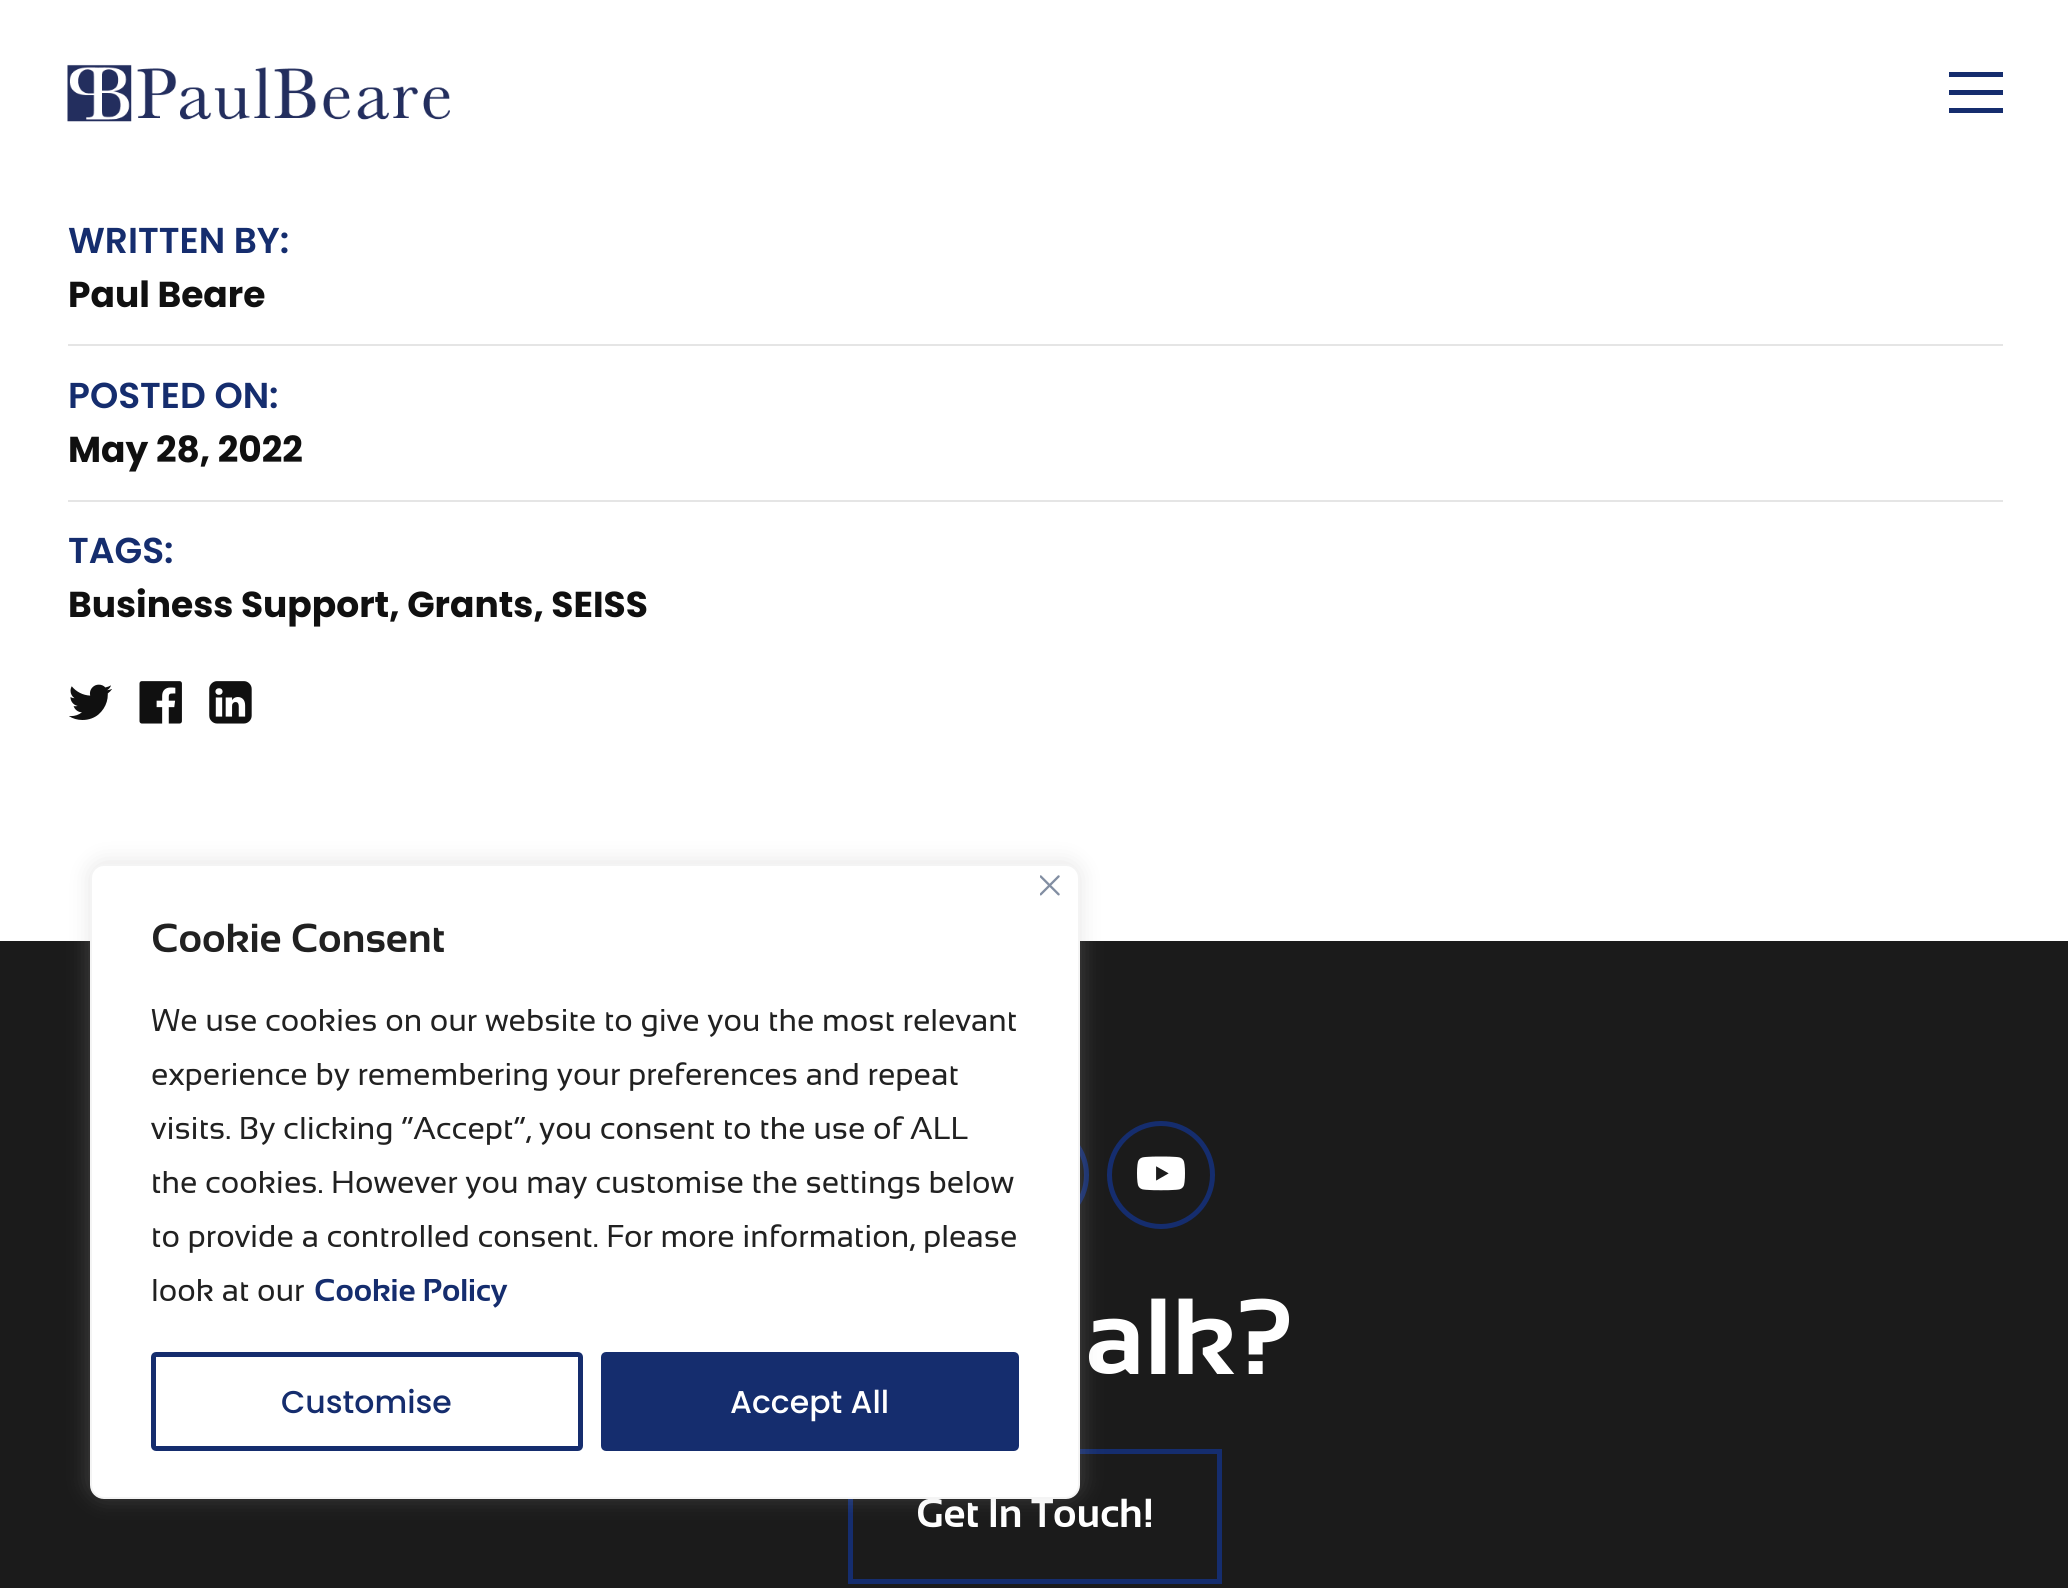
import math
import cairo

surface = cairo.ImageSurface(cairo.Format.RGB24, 2068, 1588)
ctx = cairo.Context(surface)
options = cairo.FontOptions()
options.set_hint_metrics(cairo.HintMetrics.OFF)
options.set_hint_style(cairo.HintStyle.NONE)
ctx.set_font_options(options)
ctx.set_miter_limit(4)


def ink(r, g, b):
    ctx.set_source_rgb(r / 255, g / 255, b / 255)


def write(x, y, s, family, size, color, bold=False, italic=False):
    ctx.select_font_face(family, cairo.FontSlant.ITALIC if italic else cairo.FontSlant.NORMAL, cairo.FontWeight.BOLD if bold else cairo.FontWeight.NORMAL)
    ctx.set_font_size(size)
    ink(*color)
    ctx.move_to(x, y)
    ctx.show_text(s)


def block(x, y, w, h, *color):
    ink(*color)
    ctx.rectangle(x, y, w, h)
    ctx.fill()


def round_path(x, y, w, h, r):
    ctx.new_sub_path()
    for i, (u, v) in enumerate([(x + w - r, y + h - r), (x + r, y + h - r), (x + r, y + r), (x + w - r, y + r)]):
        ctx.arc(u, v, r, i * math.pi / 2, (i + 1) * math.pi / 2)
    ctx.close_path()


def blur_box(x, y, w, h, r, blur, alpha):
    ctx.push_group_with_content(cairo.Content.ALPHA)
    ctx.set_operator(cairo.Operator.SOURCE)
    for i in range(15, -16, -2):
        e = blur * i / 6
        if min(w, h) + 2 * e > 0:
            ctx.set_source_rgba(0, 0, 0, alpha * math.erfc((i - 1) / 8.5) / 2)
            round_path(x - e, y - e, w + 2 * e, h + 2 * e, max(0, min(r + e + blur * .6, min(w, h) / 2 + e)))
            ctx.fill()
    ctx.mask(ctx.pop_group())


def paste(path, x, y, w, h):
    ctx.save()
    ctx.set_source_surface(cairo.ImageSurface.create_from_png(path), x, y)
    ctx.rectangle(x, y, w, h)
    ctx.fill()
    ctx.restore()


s1 = dict(family="Poppins SemiBold", size=36, color=(21, 45, 110))
s2 = dict(family="Poppins", size=36, color=(16, 16, 16), bold=True)
s3 = dict(family="Sansation", size=108, color=(255, 255, 255), bold=True)
s4 = dict(family="Sansation", size=40.5, color=(255, 255, 255), bold=True)
s5 = dict(family="Sansation", size=40.5, color=(33, 33, 33), bold=True)
s6 = dict(family="Sansation", size=31.5, color=(33, 33, 33))
s7 = dict(family="Sansation", size=31.5, color=(21, 45, 110), bold=True)
s8 = dict(family="Poppins Medium", size=31.5, color=(21, 45, 110))
s9 = dict(family="Poppins Medium", size=31.5, color=(255, 255, 255))

ink(255, 255, 255)
ctx.paint()
paste("pic1.png", 67, 64, 383, 58)
block(1949, 90, 54, 5, 21, 45, 110)
block(1949, 72, 54, 5, 21, 45, 110)
block(1949, 108, 54, 5, 21, 45, 110)
write(68, 253, "WRITTEN BY:", **s1)
write(68, 307, "Paul Beare", **s2)
block(68, 344, 1935, 2, 229, 229, 229)
write(68, 408, "POSTED ON:", **s1)
write(68, 462, "May 28, 2022", **s2)
block(68, 500, 1935, 2, 229, 229, 229)
write(68, 563, "TAGS:", **s1)
write(68, 617, "Business Support, Grants, SEISS", **s2)
paste("pic2.png", 69, 684, 43, 36)
paste("pic3.png", 139, 681, 43, 43)
paste("pic4.png", 209, 681, 43, 43)
block(0, 941, 2068, 647, 27, 27, 27)
ctx.arc(1035, 1175, 51.5, 0, 2 * math.pi)
ink(21, 45, 110)
ctx.set_line_width(5)
ctx.stroke()
ctx.arc(1161, 1175, 51.5, 0, 2 * math.pi)
ctx.stroke()
paste("pic5.png", 1137, 1156, 48, 35)
write(1085, 1374, "alk?", **s3)
ctx.rectangle(850.5, 1451.5, 369, 130)
ink(21, 45, 110)
ctx.stroke()
write(916, 1527, "Get In Touch!", **s4)
ink(172, 171, 171)
blur_box(90, 862, 990, 634, 14, 11, 0.3)
ink(255, 255, 255)
round_path(91, 865, 988, 633, 13)
ctx.fill_preserve()
ink(244, 244, 244)
ctx.set_line_width(2)
ctx.stroke()
paste("pic6.png", 1040, 875, 20, 21)
write(151, 952, "Cookie Consent", **s5)
write(151, 1031, "We use cookies on our website to give you the most relevant", **s6)
write(151, 1085, "experience by remembering your preferences and repeat", **s6)
write(151, 1139, "visits. By clicking “Accept”, you consent to the use of ALL", **s6)
write(151, 1193, "the cookies. However you may customise the settings below", **s6)
write(151, 1247, "to provide a controlled consent. For more information, please", **s6)
write(151, 1301, "look at our", **s6)
write(314, 1301, "Cookie Policy", **s7)
round_path(153.5, 1354.5, 427, 94, 2.5)
ctx.set_line_width(5)
ctx.stroke()
write(281, 1413, "Customise", **s8)
round_path(603.5, 1354.5, 413, 94, 2.5)
ctx.fill_preserve()
ctx.stroke()
write(730, 1413, "Accept All", **s9)
surface.write_to_png("screenshot.png")
